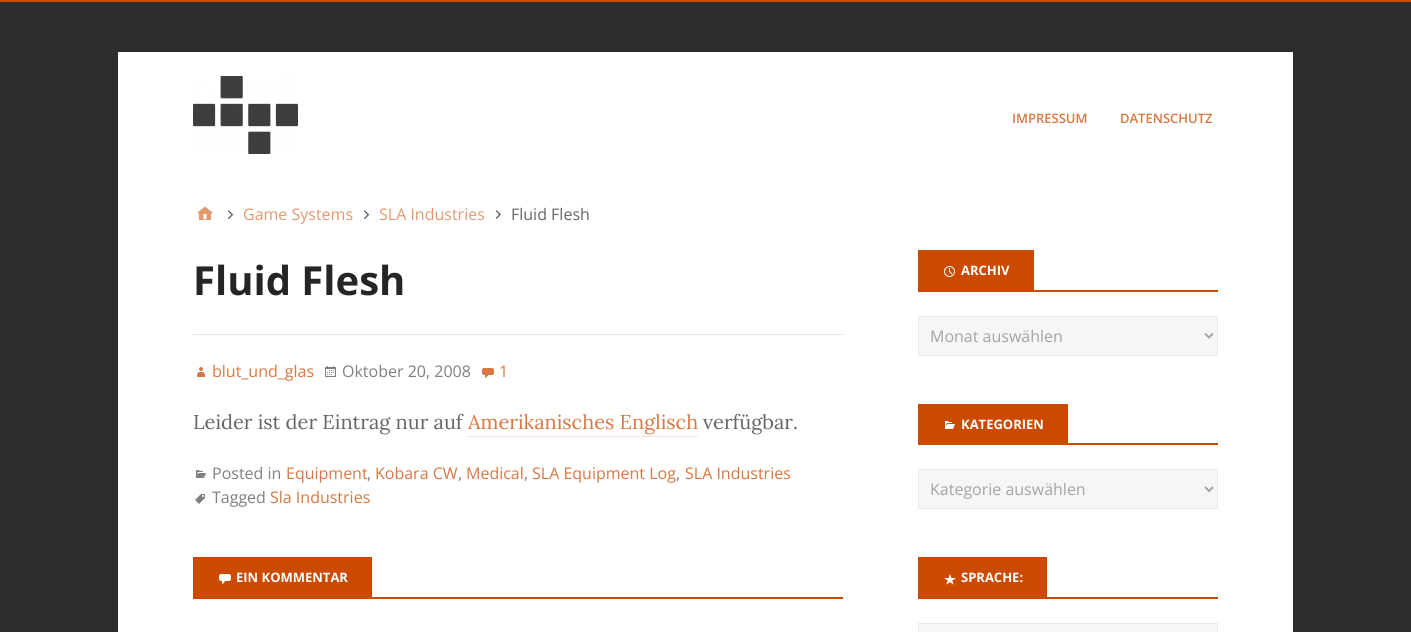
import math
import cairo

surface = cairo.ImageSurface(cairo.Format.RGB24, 1411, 632)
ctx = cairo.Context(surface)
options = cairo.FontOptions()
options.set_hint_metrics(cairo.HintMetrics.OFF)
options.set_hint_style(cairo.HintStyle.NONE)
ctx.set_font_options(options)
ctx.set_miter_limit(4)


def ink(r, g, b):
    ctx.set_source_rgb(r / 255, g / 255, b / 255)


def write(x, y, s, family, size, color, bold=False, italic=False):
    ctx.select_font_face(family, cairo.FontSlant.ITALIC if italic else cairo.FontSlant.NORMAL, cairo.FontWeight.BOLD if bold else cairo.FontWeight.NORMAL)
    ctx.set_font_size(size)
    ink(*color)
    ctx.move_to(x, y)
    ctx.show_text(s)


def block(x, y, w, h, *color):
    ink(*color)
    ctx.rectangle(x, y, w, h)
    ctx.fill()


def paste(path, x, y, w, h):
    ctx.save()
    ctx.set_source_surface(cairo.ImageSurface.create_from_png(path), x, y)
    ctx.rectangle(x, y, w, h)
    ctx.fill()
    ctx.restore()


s1 = dict(family="Open Sans SemiBold", size=13, color=(217, 119, 64))
s2 = dict(family="Open Sans", size=16, color=(227, 153, 112))
s3 = dict(family="Open Sans", size=16, color=(101, 101, 101))
s4 = dict(family="Open Sans", size=40, color=(37, 37, 37), bold=True)
s5 = dict(family="Open Sans", size=16, color=(217, 119, 64))
s6 = dict(family="Open Sans", size=16, color=(128, 128, 128))
s7 = dict(family="Lora", size=20, color=(101, 101, 101))
s8 = dict(family="Lora", size=20, color=(217, 119, 64))
s9 = dict(family="Open Sans", size=13, color=(255, 255, 255), bold=True)
s10 = dict(family="Open Sans", size=16, color=(164, 164, 164))

ink(45, 45, 45)
ctx.paint()
block(0, 0, 1411, 2, 204, 74, 0)
block(118, 52, 1175, 580, 255, 255, 255)
paste("pic1.png", 193, 76, 105, 78)
write(1012, 123, "IMPRESSUM", **s1)
write(1120, 123, "DATENSCHUTZ", **s1)
paste("pic2.png", 197, 206, 16, 14)
paste("pic3.png", 227, 210, 7, 10)
write(243, 220, "Game Systems", **s2)
paste("pic4.png", 363, 210, 7, 10)
write(379, 220, "SLA Industries", **s2)
paste("pic5.png", 495, 210, 6, 9)
write(511, 220, "Fluid Flesh", **s3)
block(193, 334, 650, 1, 227, 227, 227)
write(193, 295, "Fluid Flesh", **s4)
paste("pic6.png", 197, 367, 8, 10)
write(212, 377, "blut_und_glas", **s5)
paste("pic7.png", 325, 366, 11, 11)
write(342, 377, "Oktober 20, 2008", **s6)
paste("pic8.png", 482, 368, 12, 11)
write(499, 377, "1", **s5)
write(193, 429, "Leider ist der Eintrag nur auf", **s7)
write(468, 429, "Amerikanisches Englisch", **s8)
block(468, 436, 230, 1, 247, 228, 217)
write(703, 429, "verfügbar.", **s7)
paste("pic9.png", 196, 470, 10, 8)
write(212, 479, "Posted in", **s6)
write(286, 479, "Equipment", **s5)
write(375, 479, "Kobara CW", **s5)
write(466, 479, "Medical", **s5)
write(532, 479, "SLA Equipment Log", **s5)
write(685, 479, "SLA Industries", **s5)
write(367, 479, ",", **s6)
write(458, 479, ",", **s6)
write(524, 479, ",", **s6)
write(676, 479, ",", **s6)
paste("pic10.png", 195, 494, 10, 10)
write(212, 503, "Tagged", **s6)
write(270, 503, "Sla Industries", **s5)
block(193, 597, 650, 2, 204, 74, 0)
block(193, 557, 179, 40, 204, 74, 0)
paste("pic11.png", 219, 574, 12, 11)
write(236, 582, "EIN KOMMENTAR", **s9)
block(918, 290, 300, 2, 204, 74, 0)
block(918, 250, 116, 40, 204, 74, 0)
paste("pic12.png", 944, 266, 11, 11)
write(961, 275, "ARCHIV", **s9)
ink(246, 246, 246)
ctx.rectangle(918.5, 316.5, 299, 39)
ctx.fill_preserve()
ink(234, 234, 234)
ctx.set_line_width(1)
ctx.stroke()
ctx.new_path()
ctx.move_to(1205, 333.5)
ctx.line_to(1209, 337.5)
ctx.line_to(1213, 333.5)
ink(164, 164, 164)
ctx.set_line_width(2)
ctx.stroke()
write(930, 342, "Monat auswählen", **s10)
block(918, 443, 300, 2, 204, 74, 0)
block(918, 404, 150, 39, 204, 74, 0)
paste("pic13.png", 945, 421, 10, 8)
write(961, 429, "KATEGORIEN", **s9)
ink(246, 246, 246)
ctx.rectangle(918.5, 469.5, 299, 39)
ctx.fill_preserve()
ink(234, 234, 234)
ctx.set_line_width(1)
ctx.stroke()
ctx.new_path()
ctx.move_to(1205, 487)
ctx.line_to(1209, 491)
ctx.line_to(1213, 487)
ink(164, 164, 164)
ctx.set_line_width(2)
ctx.stroke()
write(930, 495, "Kategorie auswählen", **s10)
block(918, 597, 300, 2, 204, 74, 0)
block(918, 557, 129, 40, 204, 74, 0)
paste("pic14.png", 944, 574, 12, 11)
write(961, 582, "SPRACHE:", **s9)
ink(246, 246, 246)
ctx.rectangle(918.5, 623.5, 299, 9)
ctx.fill_preserve()
ink(234, 234, 234)
ctx.set_line_width(1)
ctx.stroke()
surface.write_to_png("screenshot.png")
